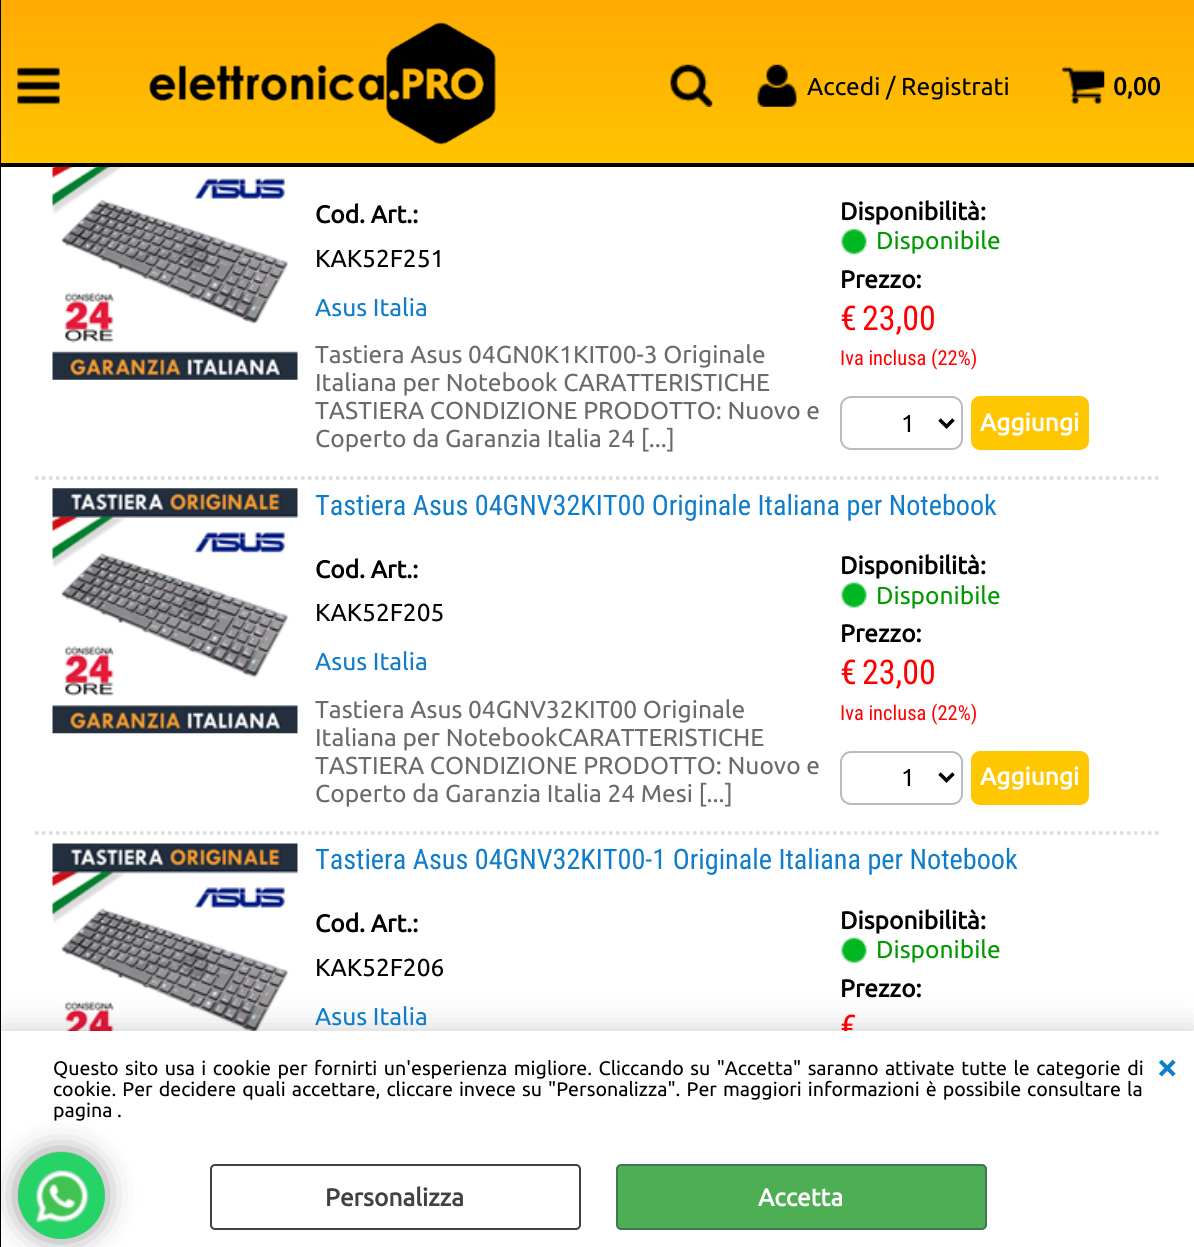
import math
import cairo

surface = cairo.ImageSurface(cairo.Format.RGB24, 1194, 1247)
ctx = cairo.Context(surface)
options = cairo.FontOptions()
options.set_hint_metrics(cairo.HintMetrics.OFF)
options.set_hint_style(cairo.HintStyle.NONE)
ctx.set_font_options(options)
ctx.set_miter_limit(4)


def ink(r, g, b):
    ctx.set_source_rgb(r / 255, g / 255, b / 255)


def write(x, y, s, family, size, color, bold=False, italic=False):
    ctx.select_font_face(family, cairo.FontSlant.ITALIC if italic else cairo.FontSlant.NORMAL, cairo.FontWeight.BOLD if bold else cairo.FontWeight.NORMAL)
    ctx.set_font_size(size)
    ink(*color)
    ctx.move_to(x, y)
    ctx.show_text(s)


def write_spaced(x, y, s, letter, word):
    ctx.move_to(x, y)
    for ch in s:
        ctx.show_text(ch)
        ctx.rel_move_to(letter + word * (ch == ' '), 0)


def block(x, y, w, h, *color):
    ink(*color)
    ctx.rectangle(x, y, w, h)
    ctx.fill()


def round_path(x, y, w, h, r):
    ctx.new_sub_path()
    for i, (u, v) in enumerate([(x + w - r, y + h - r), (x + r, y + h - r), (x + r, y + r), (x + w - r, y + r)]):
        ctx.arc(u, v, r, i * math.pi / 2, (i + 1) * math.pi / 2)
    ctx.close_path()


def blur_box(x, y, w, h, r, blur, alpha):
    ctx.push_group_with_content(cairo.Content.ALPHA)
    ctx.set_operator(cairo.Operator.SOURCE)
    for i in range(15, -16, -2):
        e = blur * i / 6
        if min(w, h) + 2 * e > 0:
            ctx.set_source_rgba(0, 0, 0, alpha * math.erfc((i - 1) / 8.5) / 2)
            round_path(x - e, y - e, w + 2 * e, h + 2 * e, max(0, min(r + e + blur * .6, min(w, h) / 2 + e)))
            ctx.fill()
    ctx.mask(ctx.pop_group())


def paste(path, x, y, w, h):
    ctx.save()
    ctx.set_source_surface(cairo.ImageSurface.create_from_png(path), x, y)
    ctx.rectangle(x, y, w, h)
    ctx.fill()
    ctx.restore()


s1 = dict(family="Roboto Condensed", size=34, color=(255, 0, 0))
s2 = dict(family="Ubuntu", size=24.5, color=(0, 0, 0))
s3 = dict(family="Ubuntu", size=24.5, color=(0, 0, 0), bold=True)
s4 = dict(family="Ubuntu", size=24.5, color=(15, 125, 202))
s5 = dict(family="Ubuntu", size=24.5, color=(0, 153, 0))
s6 = dict(family="Roboto Condensed", size=20.5, color=(255, 0, 0))
s7 = dict(family="Ubuntu", size=24.5, color=(255, 255, 255), bold=True)
s8 = dict(family="Ubuntu", size=24.5, color=(107, 105, 105))
s9 = dict(family="Roboto Condensed", size=28.2, color=(15, 125, 202))
s10 = dict(family="Ubuntu", size=19.6, color=(0, 0, 0))
s11 = dict(family="Ubuntu", size=38, color=(15, 125, 202), bold=True)
s12 = dict(family="Ubuntu", size=24.5, color=(66, 65, 65), bold=True)

ink(255, 255, 255)
ctx.paint()
block(0, 163, 1194, 4, 0, 0, 0)
paste("pic10.png", 52, 843, 246, 188)
ink(0, 0, 0)
blur_box(0, 1031, 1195, 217, 0, 16, 0.2)
write(840, 1039, "€", **s1)
block(1, 1031, 1193, 216, 255, 255, 255)
ink(0, 0, 0)
blur_box(26, 1160, 70, 70, 35, 17.5, 0.7)
block(0, 0, 1, 1247, 0, 0, 0)
gradient = cairo.LinearGradient(54, 163, 54, 0)
gradient.add_color_stop_rgba(0, 1, 0.769, 0.008, 1)
gradient.add_color_stop_rgba(1, 1, 0.667, 0.008, 1)
ctx.set_source(gradient)
ctx.rectangle(1, 0, 108, 163)
ctx.fill()
paste("pic1.png", 17, 67, 43, 38)
gradient = cairo.LinearGradient(320, 163, 320, 0)
gradient.add_color_stop_rgba(0, 1, 0.769, 0.008, 1)
gradient.add_color_stop_rgba(1, 1, 0.667, 0.008, 1)
ctx.set_source(gradient)
ctx.rectangle(109, 0, 423, 163)
ctx.fill()
paste("pic2.png", 149, 22, 347, 123)
gradient = cairo.LinearGradient(635, 163, 635, 0)
gradient.add_color_stop_rgba(0, 1, 0.769, 0.008, 1)
gradient.add_color_stop_rgba(1, 1, 0.667, 0.008, 1)
ctx.set_source(gradient)
ctx.rectangle(532, 0, 207, 163)
ctx.fill()
paste("pic3.png", 670, 64, 43, 43)
gradient = cairo.LinearGradient(892, 163, 892, 0)
gradient.add_color_stop_rgba(0, 1, 0.769, 0.008, 1)
gradient.add_color_stop_rgba(1, 1, 0.667, 0.008, 1)
ctx.set_source(gradient)
ctx.rectangle(739, 0, 306, 163)
ctx.fill()
paste("pic4.png", 757, 64, 40, 43)
write(807, 95, "Accedi / Registrati", **s2)
gradient = cairo.LinearGradient(1120, 163, 1120, 0)
gradient.add_color_stop_rgba(0, 1, 0.769, 0.008, 1)
gradient.add_color_stop_rgba(1, 1, 0.667, 0.008, 1)
ctx.set_source(gradient)
ctx.rectangle(1045, 0, 149, 163)
ctx.fill()
paste("pic5.png", 1062, 66, 43, 39)
write(1113, 95, "0,00", **s3)
ctx.new_path()
ctx.move_to(35, 478)
ctx.line_to(1160, 478)
ink(221, 221, 221)
ctx.set_line_width(3.5)
ctx.set_dash([3.5, 3.5])
ctx.stroke()
paste("pic6.png", 52, 167, 246, 213)
write(315, 223, "Cod. Art.:", **s3)
write(315, 267, "KAK52F251", **s2)
write(315, 316, "Asus Italia", **s4)
write(840, 220, "Disponibilità:", **s3)
paste("pic7.png", 841, 228, 26, 27)
write(876, 249, "Disponibile", **s5)
write(840, 288, "Prezzo:", **s3)
write(840, 330, "€", **s1)
write(862, 330, "23,00", **s1)
write(840, 365, "Iva inclusa (22%)", **s6)
round_path(841, 397, 121, 52, 10)
ink(187, 187, 187)
ctx.set_line_width(2)
ctx.set_dash([])
ctx.stroke()
ctx.new_path()
ctx.move_to(939.5, 419.5)
ctx.line_to(946.5, 426.5)
ctx.line_to(953.5, 419.5)
ink(0, 0, 0)
ctx.set_line_width(3.5)
ctx.stroke()
write(901, 432, "1", **s2)
ink(255, 198, 2)
round_path(972, 397, 116, 52, 8)
ctx.fill_preserve()
ctx.set_line_width(2)
ctx.stroke()
write(980, 431, "Aggiungi", **s7)
write(315, 363, "Tastiera Asus 04GN0K1KIT00-3 Originale", **s8)
write(315, 391, "Italiana per Notebook CARATTERISTICHE", **s8)
write(315, 419, "TASTIERA CONDIZIONE PRODOTTO: Nuovo e", **s8)
write(315, 447, "Coperto da Garanzia Italia 24 [...]", **s8)
ctx.new_path()
ctx.move_to(35, 833)
ctx.line_to(1160, 833)
ink(221, 221, 221)
ctx.set_line_width(3.5)
ctx.set_dash([3.5, 3.5])
ctx.stroke()
paste("pic8.png", 52, 488, 246, 246)
write(315, 515, "Tastiera Asus 04GNV32KIT00 Originale Italiana per Notebook", **s9)
write(315, 578, "Cod. Art.:", **s3)
write(315, 621, "KAK52F205", **s2)
write(315, 670, "Asus Italia", **s4)
write(840, 574, "Disponibilità:", **s3)
paste("pic9.png", 841, 582, 26, 26)
write(876, 604, "Disponibile", **s5)
write(840, 642, "Prezzo:", **s3)
write(840, 684, "€", **s1)
write(862, 684, "23,00", **s1)
write(840, 720, "Iva inclusa (22%)", **s6)
round_path(841, 752, 121, 52, 10)
ink(187, 187, 187)
ctx.set_line_width(2)
ctx.set_dash([])
ctx.stroke()
ctx.new_path()
ctx.move_to(939.5, 773.5)
ctx.line_to(946.5, 780.5)
ctx.line_to(953.5, 773.5)
ink(0, 0, 0)
ctx.set_line_width(3.5)
ctx.stroke()
write(901, 786, "1", **s2)
ink(255, 198, 2)
round_path(972, 752, 116, 52, 8)
ctx.fill_preserve()
ctx.set_line_width(2)
ctx.stroke()
write(980, 785, "Aggiungi", **s7)
write(315, 718, "Tastiera Asus 04GNV32KIT00 Originale", **s8)
write(315, 746, "Italiana per NotebookCARATTERISTICHE", **s8)
write(315, 774, "TASTIERA CONDIZIONE PRODOTTO: Nuovo e", **s8)
write(315, 802, "Coperto da Garanzia Italia 24 Mesi [...]", **s8)
write(315, 869, "Tastiera Asus 04GNV32KIT00-1 Originale Italiana per Notebook", **s9)
write(315, 932, "Cod. Art.:", **s3)
write(315, 976, "KAK52F206", **s2)
write(315, 1025, "Asus Italia", **s4)
write(840, 929, "Disponibilità:", **s3)
paste("pic11.png", 841, 937, 26, 26)
write(876, 958, "Disponibile", **s5)
write(840, 997, "Prezzo:", **s3)
ctx.select_font_face("Ubuntu")
ctx.set_font_size(19.6)
write_spaced(53, 1075, "Questo sito usa i cookie per fornirti un'esperienza migliore. Cliccando su \"Accetta\" saranno attivate tutte le categorie di", 0, 1.9)
write_spaced(53, 1096, "cookie. Per decidere quali accettare, cliccare invece su \"Personalizza\". Per maggiori informazioni è possibile consultare la", 0, 1.5)
write(53, 1117, "pagina .", **s10)
write(1156, 1080, "×", **s11)
round_path(211, 1165, 369, 64, 4)
ink(66, 65, 65)
ctx.stroke()
write(325, 1206, "Personalizza", **s12)
ink(78, 174, 84)
round_path(617, 1165, 369, 64, 4)
ctx.fill_preserve()
ink(63, 119, 85)
ctx.stroke()
write(758, 1206, "Accetta", **s7)
ink(37, 211, 102)
ctx.new_path()
ctx.arc(61.5, 1195.5, 43.5, 0, 2 * math.pi)
ctx.fill()
paste("pic12.png", 36, 1170, 53, 54)
surface.write_to_png("screenshot.png")
